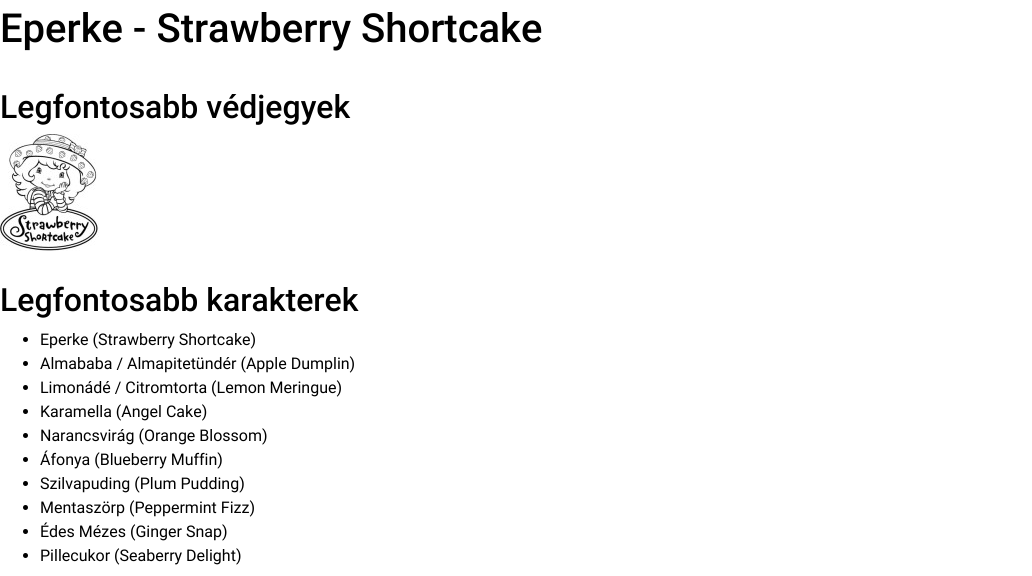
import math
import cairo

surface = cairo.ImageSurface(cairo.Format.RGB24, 1032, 576)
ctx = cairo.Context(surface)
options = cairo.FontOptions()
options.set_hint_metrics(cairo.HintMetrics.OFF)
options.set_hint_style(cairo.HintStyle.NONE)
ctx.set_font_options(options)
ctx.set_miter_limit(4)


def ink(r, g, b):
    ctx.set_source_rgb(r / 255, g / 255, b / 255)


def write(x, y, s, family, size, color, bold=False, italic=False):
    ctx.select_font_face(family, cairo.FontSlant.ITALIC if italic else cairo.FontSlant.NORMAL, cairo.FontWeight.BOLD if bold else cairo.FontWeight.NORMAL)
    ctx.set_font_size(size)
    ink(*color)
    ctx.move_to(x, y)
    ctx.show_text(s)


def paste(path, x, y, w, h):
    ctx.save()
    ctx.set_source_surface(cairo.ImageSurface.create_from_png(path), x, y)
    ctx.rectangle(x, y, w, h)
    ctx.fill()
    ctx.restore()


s1 = dict(family="Roboto Medium", size=40, color=(0, 0, 0))
s2 = dict(family="Roboto Medium", size=32, color=(0, 0, 0))
s3 = dict(family="Roboto", size=16, color=(0, 0, 0))

ink(255, 255, 255)
ctx.paint()
write(0, 42, "Eperke - Strawberry Shortcake", **s1)
write(0, 118, "Legfontosabb védjegyek", **s2)
paste("pic1.png", 0, 134, 99, 117)
write(0, 311, "Legfontosabb karakterek", **s2)
ctx.new_path()
ctx.arc(25.5, 339.5, 2.5, 0, 2 * math.pi)
ctx.fill()
write(40, 345, "Eperke (Strawberry Shortcake)", **s3)
ctx.new_path()
ctx.arc(25.5, 363.5, 2.5, 0, 2 * math.pi)
ctx.fill()
write(40, 369, "Almababa / Almapitetündér (Apple Dumplin)", **s3)
ctx.new_path()
ctx.arc(25.5, 387.5, 2.5, 0, 2 * math.pi)
ctx.fill()
write(40, 393, "Limonádé / Citromtorta (Lemon Meringue)", **s3)
ctx.new_path()
ctx.arc(25.5, 411.5, 2.5, 0, 2 * math.pi)
ctx.fill()
write(40, 417, "Karamella (Angel Cake)", **s3)
ctx.new_path()
ctx.arc(25.5, 435.5, 2.5, 0, 2 * math.pi)
ctx.fill()
write(40, 441, "Narancsvirág (Orange Blossom)", **s3)
ctx.new_path()
ctx.arc(25.5, 459.5, 2.5, 0, 2 * math.pi)
ctx.fill()
write(40, 465, "Áfonya (Blueberry Muffin)", **s3)
ctx.new_path()
ctx.arc(25.5, 483.5, 2.5, 0, 2 * math.pi)
ctx.fill()
write(40, 489, "Szilvapuding (Plum Pudding)", **s3)
ctx.new_path()
ctx.arc(25.5, 507.5, 2.5, 0, 2 * math.pi)
ctx.fill()
write(40, 513, "Mentaszörp (Peppermint Fizz)", **s3)
ctx.new_path()
ctx.arc(25.5, 531.5, 2.5, 0, 2 * math.pi)
ctx.fill()
write(40, 537, "Édes Mézes (Ginger Snap)", **s3)
ctx.new_path()
ctx.arc(25.5, 555.5, 2.5, 0, 2 * math.pi)
ctx.fill()
write(40, 561, "Pillecukor (Seaberry Delight)", **s3)
surface.write_to_png("screenshot.png")
